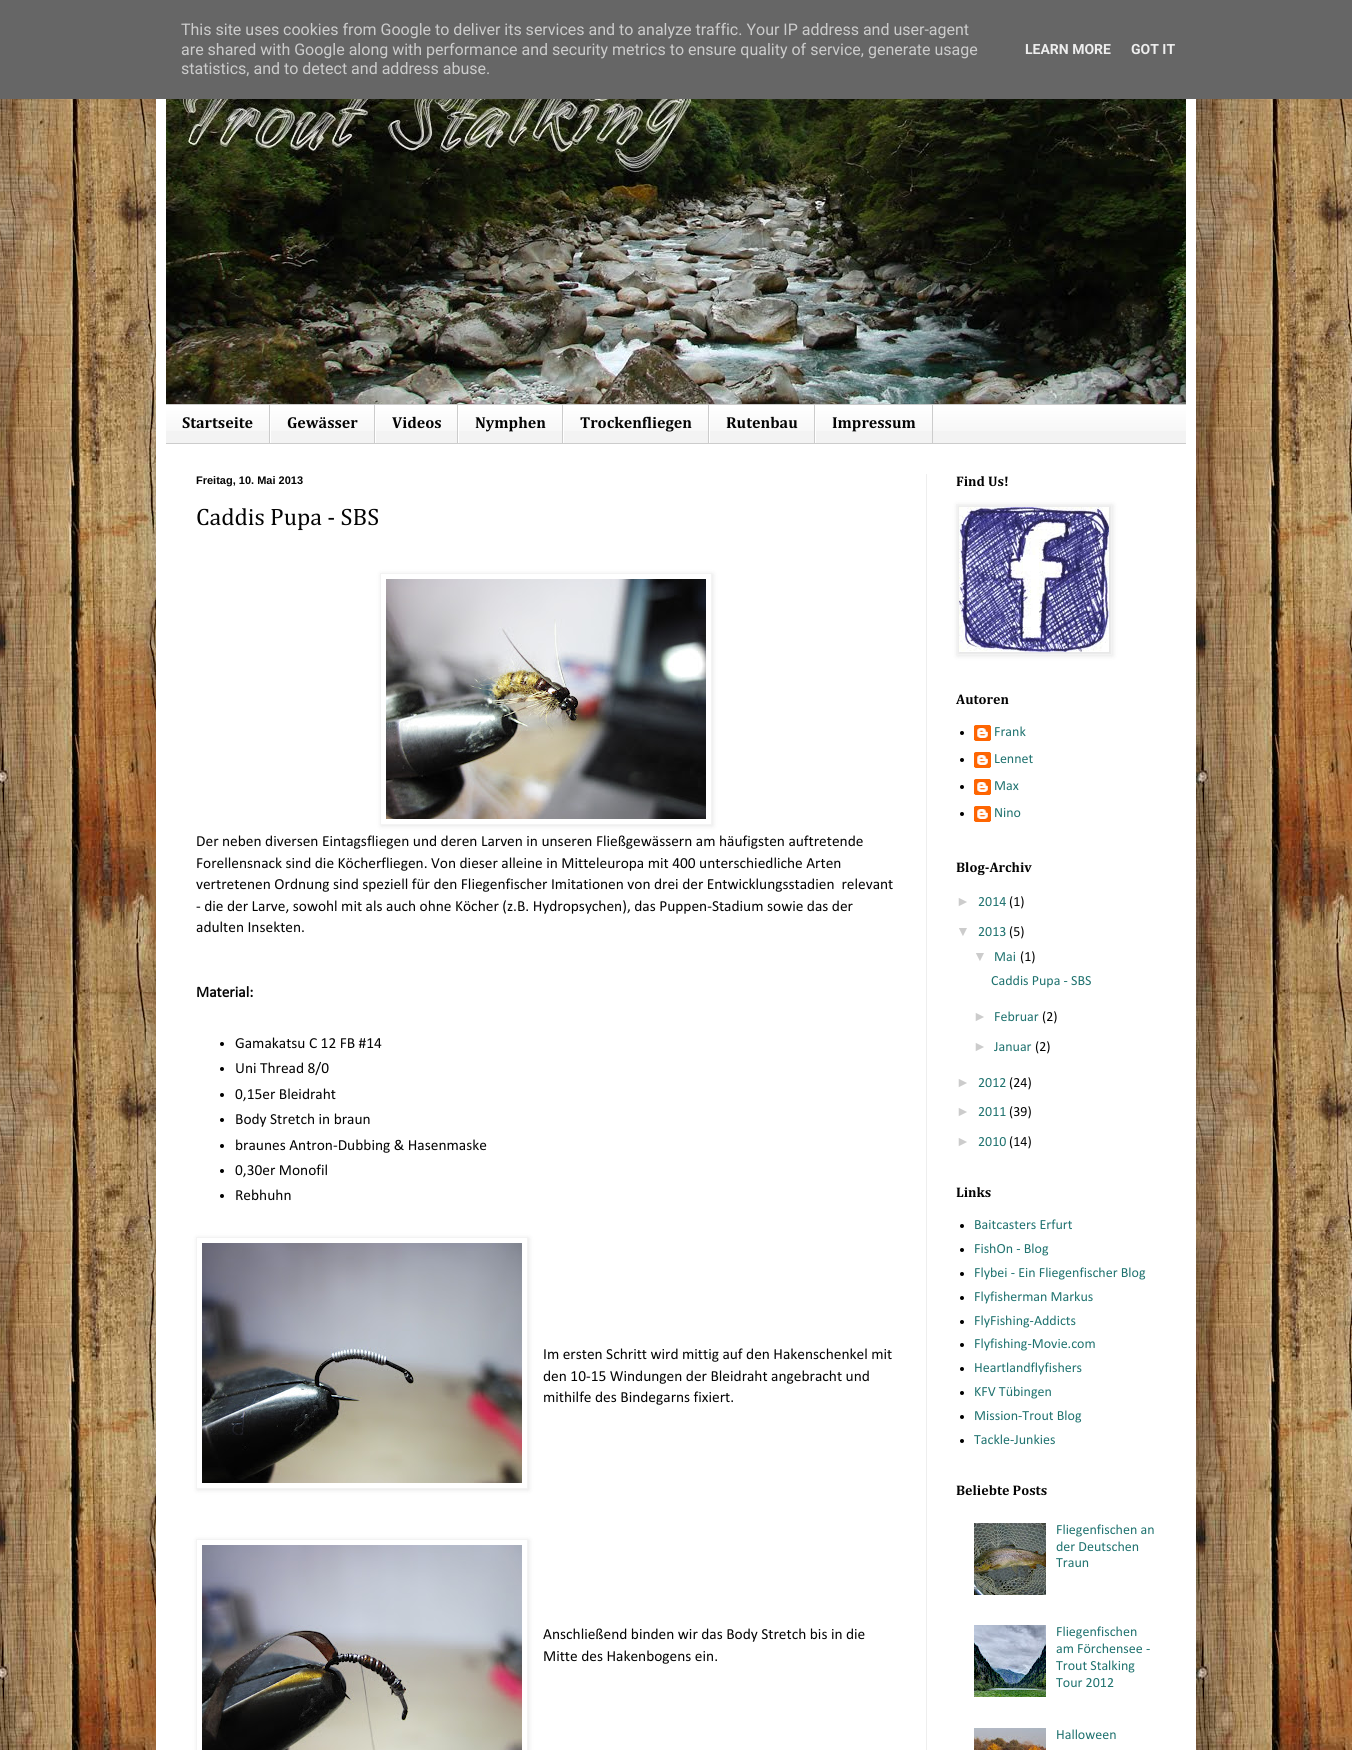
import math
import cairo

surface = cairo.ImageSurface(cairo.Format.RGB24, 1352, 1750)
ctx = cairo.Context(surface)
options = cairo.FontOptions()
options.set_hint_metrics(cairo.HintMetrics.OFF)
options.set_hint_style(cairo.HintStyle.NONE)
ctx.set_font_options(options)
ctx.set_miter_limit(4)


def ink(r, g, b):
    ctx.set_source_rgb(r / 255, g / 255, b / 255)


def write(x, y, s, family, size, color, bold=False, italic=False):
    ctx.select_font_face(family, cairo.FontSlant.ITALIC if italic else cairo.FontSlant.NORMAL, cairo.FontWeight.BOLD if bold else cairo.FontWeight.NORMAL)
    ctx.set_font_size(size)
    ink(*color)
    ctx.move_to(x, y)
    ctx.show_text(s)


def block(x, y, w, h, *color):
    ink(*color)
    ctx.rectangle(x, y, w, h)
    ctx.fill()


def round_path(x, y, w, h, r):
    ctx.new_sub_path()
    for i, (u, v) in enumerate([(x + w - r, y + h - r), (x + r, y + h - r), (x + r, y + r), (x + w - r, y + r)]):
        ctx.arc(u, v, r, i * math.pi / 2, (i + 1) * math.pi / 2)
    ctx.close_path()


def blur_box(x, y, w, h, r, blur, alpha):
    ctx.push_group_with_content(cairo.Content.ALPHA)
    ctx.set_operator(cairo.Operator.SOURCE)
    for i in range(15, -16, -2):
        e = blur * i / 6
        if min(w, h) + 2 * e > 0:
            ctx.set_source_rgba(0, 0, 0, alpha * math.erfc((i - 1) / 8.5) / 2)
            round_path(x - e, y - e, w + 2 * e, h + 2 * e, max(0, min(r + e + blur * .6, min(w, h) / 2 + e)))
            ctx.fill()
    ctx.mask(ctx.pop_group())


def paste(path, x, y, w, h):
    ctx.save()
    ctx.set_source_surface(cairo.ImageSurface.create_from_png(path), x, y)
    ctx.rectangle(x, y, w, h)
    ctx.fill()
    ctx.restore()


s1 = dict(family="Roboto", size=16, color=(204, 204, 204))
s2 = dict(family="Roboto", size=14, color=(238, 238, 238), bold=True)
s3 = dict(family="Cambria", size=16, color=(4, 4, 4), bold=True)
s4 = dict(family="Liberation Sans", size=11, color=(4, 4, 4), bold=True)
s5 = dict(family="Cambria", size=24, color=(4, 4, 4))
s6 = dict(family="Calibri", size=15.4, color=(4, 4, 4))
s7 = dict(family="Calibri", size=15.4, color=(4, 4, 4), bold=True)
s8 = dict(family="Cambria", size=14, color=(4, 4, 4), bold=True)
s9 = dict(family="Calibri", size=14, color=(31, 114, 111))
s10 = dict(family="Liberation Sans", size=14, color=(204, 204, 204))
s11 = dict(family="Calibri", size=14, color=(4, 4, 4))

ink(255, 255, 255)
ctx.paint()
paste("pic1.png", 0, 99, 1352, 1651)
ink(0, 0, 0)
blur_box(156, 30, 1040, 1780, 0, 20, 0.15)
block(0, 0, 1352, 99, 102, 102, 102)
write(181, 35, "This site uses cookies from Google to deliver its services and to analyze traffic. Your IP address and user-agent", **s1)
write(181, 55, "are shared with Google along with performance and security metrics to ensure quality of service, generate usage", **s1)
write(181, 74, "statistics, and to detect and address abuse.", **s1)
write(1025, 54, "LEARN MORE", **s2)
write(1131, 54, "GOT IT", **s2)
block(156, 99, 1040, 1651, 255, 255, 255)
paste("pic2.png", 166, 99, 1020, 305)
block(166, 406, 1020, 37, 243, 243, 243)
paste("pic3.png", 166, 405, 1020, 26)
block(166, 404, 1020, 1, 204, 204, 204)
block(166, 443, 1020, 1, 204, 204, 204)
block(269, 405, 1, 38, 204, 204, 204)
write(182, 428, "Startseite", **s3)
block(374, 405, 1, 38, 204, 204, 204)
block(270, 414, 1, 29, 255, 255, 255)
write(287, 428, "Gewässer", **s3)
block(457, 405, 1, 38, 204, 204, 204)
block(375, 414, 1, 29, 255, 255, 255)
write(392, 428, "Videos", **s3)
block(562, 405, 1, 38, 204, 204, 204)
block(458, 414, 1, 29, 255, 255, 255)
write(475, 428, "Nymphen", **s3)
block(708, 405, 1, 38, 204, 204, 204)
block(563, 414, 1, 29, 255, 255, 255)
write(580, 428, "Trockenfliegen", **s3)
block(814, 405, 1, 38, 204, 204, 204)
block(709, 414, 1, 29, 255, 255, 255)
write(726, 428, "Rutenbau", **s3)
block(932, 405, 1, 38, 204, 204, 204)
block(815, 414, 1, 29, 255, 255, 255)
write(832, 428, "Impressum", **s3)
block(926, 474, 1, 1276, 238, 238, 238)
write(196, 484, "Freitag, 10. Mai 2013", **s4)
write(196, 525, "Caddis Pupa - SBS", **s5)
ctx.save()
ctx.set_fill_rule(cairo.FillRule.EVEN_ODD)
ctx.new_path()
ctx.move_to(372, 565)
ctx.line_to(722, 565)
ctx.line_to(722, 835)
ctx.line_to(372, 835)
ctx.close_path()
ctx.move_to(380, 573)
ctx.line_to(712, 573)
ctx.line_to(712, 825)
ctx.line_to(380, 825)
ctx.close_path()
ctx.clip()
ink(0, 0, 0)
blur_box(381, 574, 332, 252, 0, 2.5, 0.1)
ctx.restore()
ctx.rectangle(380.5, 573.5, 331, 251)
ink(243, 243, 243)
ctx.set_line_width(1)
ctx.stroke()
paste("pic4.png", 386, 579, 320, 240)
write(196, 846, "Der neben diversen Eintagsfliegen und deren Larven in unseren Fließgewässern am häufigsten auftretende", **s6)
write(196, 868, "Forellensnack sind die Köcherfliegen. Von dieser alleine in Mitteleuropa mit 400 unterschiedliche Arten", **s6)
write(196, 889, "vertretenen Ordnung sind speziell für den Fliegenfischer Imitationen von drei der Entwicklungsstadien  relevant", **s6)
write(196, 911, "- die der Larve, sowohl mit als auch ohne Köcher (z.B. Hydropsychen), das Puppen-Stadium sowie das der", **s6)
write(196, 932, "adulten Insekten.", **s6)
write(196, 997, "Material:", **s7)
ink(0, 0, 0)
ctx.new_path()
ctx.arc(222, 1044, 2, 0, 2 * math.pi)
ctx.fill()
write(235, 1048, "Gamakatsu C 12 FB #14", **s6)
ink(0, 0, 0)
ctx.new_path()
ctx.arc(222, 1069, 2, 0, 2 * math.pi)
ctx.fill()
write(235, 1073, "Uni Thread 8/0", **s6)
ink(0, 0, 0)
ctx.new_path()
ctx.arc(222, 1095, 2, 0, 2 * math.pi)
ctx.fill()
write(235, 1099, "0,15er Bleidraht", **s6)
ink(0, 0, 0)
ctx.new_path()
ctx.arc(222, 1120, 2, 0, 2 * math.pi)
ctx.fill()
write(235, 1124, "Body Stretch in braun", **s6)
ink(0, 0, 0)
ctx.new_path()
ctx.arc(222, 1146, 2, 0, 2 * math.pi)
ctx.fill()
write(235, 1150, "braunes Antron-Dubbing & Hasenmaske", **s6)
ink(0, 0, 0)
ctx.new_path()
ctx.arc(222, 1171, 2, 0, 2 * math.pi)
ctx.fill()
write(235, 1175, "0,30er Monofil", **s6)
ink(0, 0, 0)
ctx.new_path()
ctx.arc(222, 1196, 2, 0, 2 * math.pi)
ctx.fill()
write(235, 1200, "Rebhuhn", **s6)
ctx.save()
ctx.set_fill_rule(cairo.FillRule.EVEN_ODD)
ctx.new_path()
ctx.move_to(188, 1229)
ctx.line_to(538, 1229)
ctx.line_to(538, 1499)
ctx.line_to(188, 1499)
ctx.close_path()
ctx.move_to(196, 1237)
ctx.line_to(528, 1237)
ctx.line_to(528, 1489)
ctx.line_to(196, 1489)
ctx.close_path()
ctx.clip()
ink(0, 0, 0)
blur_box(197, 1238, 332, 252, 0, 2.5, 0.1)
ctx.restore()
ctx.rectangle(196.5, 1237.5, 331, 251)
ink(243, 243, 243)
ctx.stroke()
paste("pic5.png", 202, 1243, 320, 240)
write(543, 1359, "Im ersten Schritt wird mittig auf den Hakenschenkel mit", **s6)
write(543, 1381, "den 10-15 Windungen der Bleidraht angebracht und", **s6)
write(543, 1402, "mithilfe des Bindegarns fixiert.", **s6)
ctx.save()
ctx.set_fill_rule(cairo.FillRule.EVEN_ODD)
ctx.new_path()
ctx.move_to(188, 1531)
ctx.line_to(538, 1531)
ctx.line_to(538, 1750)
ctx.line_to(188, 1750)
ctx.close_path()
ctx.move_to(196, 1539)
ctx.line_to(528, 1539)
ctx.line_to(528, 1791)
ctx.line_to(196, 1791)
ctx.close_path()
ctx.clip()
ink(0, 0, 0)
blur_box(197, 1540, 332, 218, 0, 2.5, 0.1)
ctx.restore()
ctx.rectangle(196.5, 1539.5, 331, 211)
ink(243, 243, 243)
ctx.stroke()
paste("pic6.png", 202, 1545, 320, 205)
write(543, 1639, "Anschließend binden wir das Body Stretch bis in die", **s6)
write(543, 1661, "Mitte des Hakenbogens ein.", **s6)
write(956, 486, "Find Us!", **s8)
ink(0, 0, 0)
blur_box(957, 505, 156, 151, 0, 2.5, 0.1)
ctx.rectangle(956.5, 504.5, 155, 150)
ink(243, 243, 243)
ctx.stroke()
paste("pic7.png", 959, 507, 150, 145)
write(956, 704, "Autoren", **s8)
ink(0, 0, 0)
ctx.new_path()
ctx.arc(962, 733, 2, 0, 2 * math.pi)
ctx.fill()
paste("pic8.png", 974, 725, 17, 16)
write(994, 736, "Frank", **s9)
ink(0, 0, 0)
ctx.new_path()
ctx.arc(962, 760, 2, 0, 2 * math.pi)
ctx.fill()
paste("pic8.png", 974, 752, 17, 16)
write(994, 763, "Lennet", **s9)
ink(0, 0, 0)
ctx.new_path()
ctx.arc(962, 787, 2, 0, 2 * math.pi)
ctx.fill()
paste("pic8.png", 974, 779, 17, 16)
write(994, 790, "Max", **s9)
ink(0, 0, 0)
ctx.new_path()
ctx.arc(962, 814, 2, 0, 2 * math.pi)
ctx.fill()
paste("pic8.png", 974, 806, 17, 16)
write(994, 817, "Nino", **s9)
write(956, 872, "Blog-Archiv", **s8)
write(956, 906, "►", **s10)
write(978, 906, "2014", **s9)
write(1009, 906, "(1)", **s11)
write(956, 936, "▼", **s10)
write(978, 936, "2013", **s9)
write(1009, 936, "(5)", **s11)
write(973, 961, "▼", **s10)
write(994, 961, "Mai", **s9)
write(1020, 961, "(1)", **s11)
write(991, 985, "Caddis Pupa - SBS", **s9)
write(973, 1021, "►", **s10)
write(994, 1021, "Februar", **s9)
write(1042, 1021, "(2)", **s11)
write(973, 1051, "►", **s10)
write(994, 1051, "Januar", **s9)
write(1035, 1051, "(2)", **s11)
write(956, 1087, "►", **s10)
write(978, 1087, "2012", **s9)
write(1009, 1087, "(24)", **s11)
write(956, 1116, "►", **s10)
write(978, 1116, "2011", **s9)
write(1009, 1116, "(39)", **s11)
write(956, 1146, "►", **s10)
write(978, 1146, "2010", **s9)
write(1009, 1146, "(14)", **s11)
write(956, 1197, "Links", **s8)
ink(0, 0, 0)
ctx.new_path()
ctx.arc(962, 1226, 2, 0, 2 * math.pi)
ctx.fill()
write(974, 1229, "Baitcasters Erfurt", **s9)
ink(0, 0, 0)
ctx.new_path()
ctx.arc(962, 1250, 2, 0, 2 * math.pi)
ctx.fill()
write(974, 1253, "FishOn - Blog", **s9)
ink(0, 0, 0)
ctx.new_path()
ctx.arc(962, 1274, 2, 0, 2 * math.pi)
ctx.fill()
write(974, 1277, "Flybei - Ein Fliegenfischer Blog", **s9)
ink(0, 0, 0)
ctx.new_path()
ctx.arc(962, 1298, 2, 0, 2 * math.pi)
ctx.fill()
write(974, 1301, "Flyfisherman Markus", **s9)
ink(0, 0, 0)
ctx.new_path()
ctx.arc(962, 1322, 2, 0, 2 * math.pi)
ctx.fill()
write(974, 1325, "FlyFishing-Addicts", **s9)
ink(0, 0, 0)
ctx.new_path()
ctx.arc(962, 1345, 2, 0, 2 * math.pi)
ctx.fill()
write(974, 1348, "Flyfishing-Movie.com", **s9)
ink(0, 0, 0)
ctx.new_path()
ctx.arc(962, 1369, 2, 0, 2 * math.pi)
ctx.fill()
write(974, 1372, "Heartlandflyfishers", **s9)
ink(0, 0, 0)
ctx.new_path()
ctx.arc(962, 1393, 2, 0, 2 * math.pi)
ctx.fill()
write(974, 1396, "KFV Tübingen", **s9)
ink(0, 0, 0)
ctx.new_path()
ctx.arc(962, 1417, 2, 0, 2 * math.pi)
ctx.fill()
write(974, 1420, "Mission-Trout Blog", **s9)
ink(0, 0, 0)
ctx.new_path()
ctx.arc(962, 1441, 2, 0, 2 * math.pi)
ctx.fill()
write(974, 1444, "Tackle-Junkies", **s9)
write(956, 1495, "Beliebte Posts", **s8)
paste("pic9.png", 974, 1523, 72, 72)
write(1056, 1534, "Fliegenfischen an", **s9)
write(1056, 1551, "der Deutschen", **s9)
write(1056, 1567, "Traun", **s9)
paste("pic10.png", 974, 1625, 72, 72)
write(1056, 1636, "Fliegenfischen", **s9)
write(1056, 1653, "am Förchensee -", **s9)
write(1056, 1670, "Trout Stalking", **s9)
write(1056, 1687, "Tour 2012", **s9)
paste("pic11.png", 974, 1728, 72, 22)
write(1056, 1739, "Halloween", **s9)
surface.write_to_png("screenshot.png")
